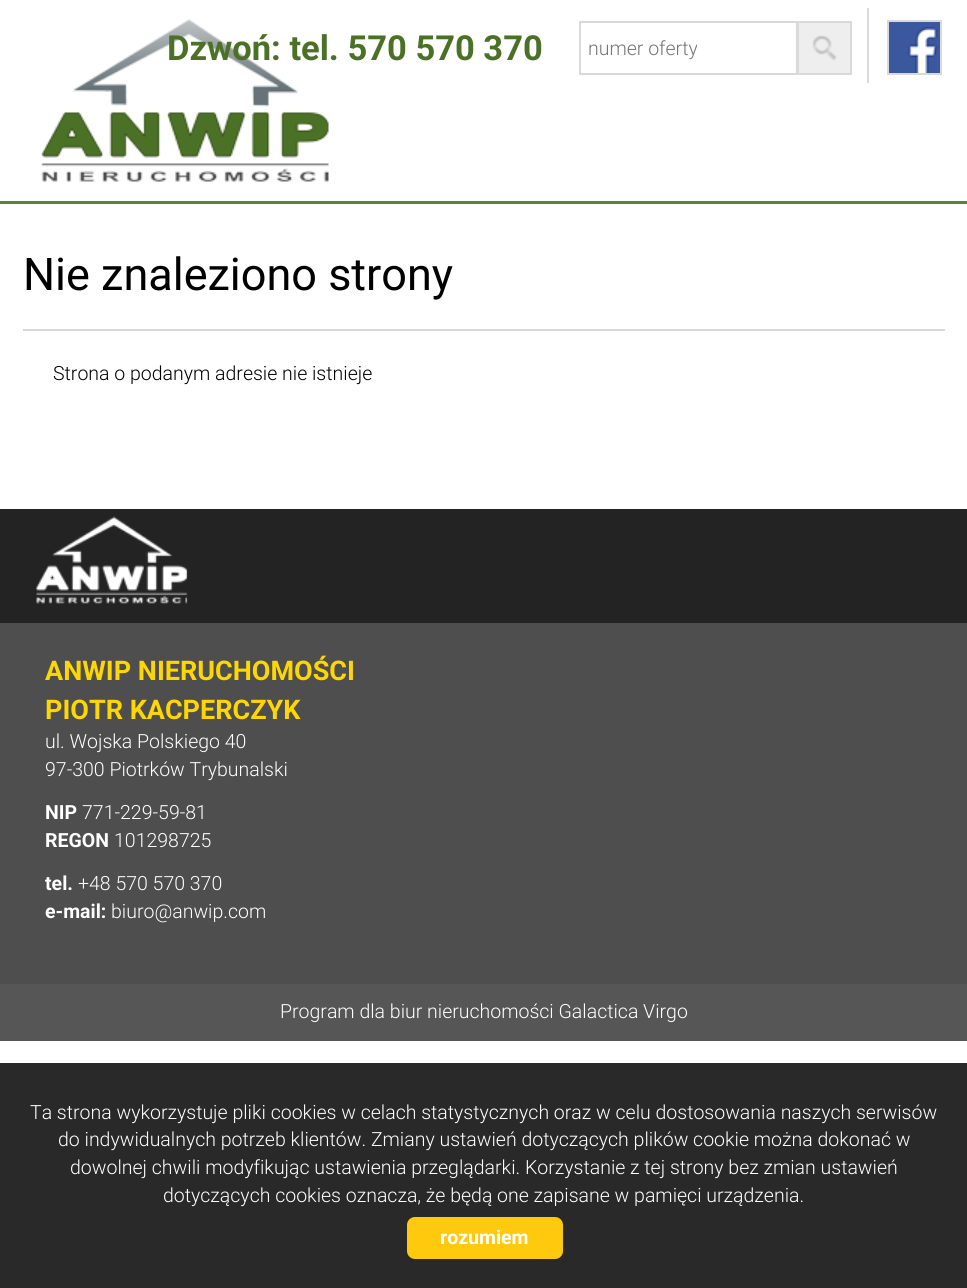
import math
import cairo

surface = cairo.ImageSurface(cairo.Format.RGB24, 967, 1288)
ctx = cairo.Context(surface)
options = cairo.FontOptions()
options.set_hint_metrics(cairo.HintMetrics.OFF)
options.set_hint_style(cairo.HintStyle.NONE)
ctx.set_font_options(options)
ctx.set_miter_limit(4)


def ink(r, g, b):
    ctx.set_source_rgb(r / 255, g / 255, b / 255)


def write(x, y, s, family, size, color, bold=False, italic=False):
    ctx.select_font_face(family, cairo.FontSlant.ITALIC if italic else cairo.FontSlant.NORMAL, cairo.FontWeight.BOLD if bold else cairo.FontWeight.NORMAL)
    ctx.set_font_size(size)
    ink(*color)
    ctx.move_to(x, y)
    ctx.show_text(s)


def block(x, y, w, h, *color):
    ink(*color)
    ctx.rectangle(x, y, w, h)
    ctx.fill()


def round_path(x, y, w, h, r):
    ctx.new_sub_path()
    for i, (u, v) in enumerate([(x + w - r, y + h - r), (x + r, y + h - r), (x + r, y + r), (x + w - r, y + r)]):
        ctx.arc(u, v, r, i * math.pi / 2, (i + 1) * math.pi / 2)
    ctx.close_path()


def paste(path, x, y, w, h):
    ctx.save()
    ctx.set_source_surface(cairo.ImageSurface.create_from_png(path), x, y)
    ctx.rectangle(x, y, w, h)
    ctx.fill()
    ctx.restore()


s1 = dict(family="Roboto", size=34.5, color=(75, 113, 38), bold=True)
s2 = dict(family="Roboto Light", size=19.5, color=(117, 117, 117))
s3 = dict(family="Roboto", size=45, color=(0, 0, 0))
s4 = dict(family="Roboto Light", size=19.5, color=(0, 0, 0))
s5 = dict(family="Roboto", size=27, color=(255, 215, 0), bold=True)
s6 = dict(family="Roboto Light", size=19.5, color=(255, 255, 255))
s7 = dict(family="Roboto", size=19.5, color=(255, 255, 255), bold=True)

ink(255, 255, 255)
ctx.paint()
block(0, 201, 967, 3, 90, 134, 47)
paste("pic1.png", 41, 19, 288, 163)
write(167, 60, "Dzwoń: tel. 570 570 370", **s1)
block(799, 23, 51, 50, 238, 238, 238)
paste("pic2.png", 812, 35, 25, 26)
ctx.rectangle(798, 22, 53, 52)
ink(217, 217, 217)
ctx.stroke()
ctx.rectangle(580, 22, 217, 52)
ctx.stroke()
write(588, 55, "numer oferty", **s2)
block(867, 8, 2, 75, 217, 217, 217)
paste("pic3.png", 889, 22, 51, 51)
ctx.rectangle(888, 21, 53, 53)
ctx.stroke()
block(23, 329, 922, 2, 217, 217, 217)
write(23, 290, "Nie znaleziono strony", **s3)
write(53, 380, "Strona o podanym adresie nie istnieje", **s4)
block(0, 509, 967, 114, 35, 35, 35)
paste("pic4.png", 36, 516, 152, 88)
block(0, 623, 967, 361, 78, 78, 78)
write(45, 680, "ANWIP NIERUCHOMOŚCI", **s5)
write(45, 719, "PIOTR KACPERCZYK", **s5)
write(45, 748, "ul. Wojska Polskiego 40", **s6)
write(45, 776, "97-300 Piotrków Trybunalski", **s6)
write(45, 819, "NIP", **s7)
write(82, 819, "771-229-59-81", **s6)
write(45, 847, "REGON", **s7)
write(114, 847, "101298725", **s6)
write(45, 890, "tel.", **s7)
write(78, 890, "+48 570 570 370", **s6)
write(45, 918, "e-mail:", **s7)
write(111, 918, "biuro@anwip.com", **s6)
block(0, 984, 967, 57, 86, 86, 86)
write(280, 1018, "Program dla biur nieruchomości Galactica Virgo", **s6)
block(0, 1063, 967, 225, 41, 41, 41)
write(30, 1119, "Ta strona wykorzystuje pliki cookies w celach statystycznych oraz w celu dostosowania naszych serwisów", **s6)
write(58, 1146, "do indywidualnych potrzeb klientów. Zmiany ustawień dotyczących plików cookie można dokonać w", **s6)
write(70, 1174, "dowolnej chwili modyfikując ustawienia przeglądarki. Korzystanie z tej strony bez zmian ustawień", **s6)
write(163, 1202, "dotyczących cookies oznacza, że będą one zapisane w pamięci urządzenia.", **s6)
ink(255, 201, 14)
round_path(407, 1217, 156, 42, 8)
ctx.fill()
write(440, 1244, "rozumiem", **s7)
surface.write_to_png("screenshot.png")
